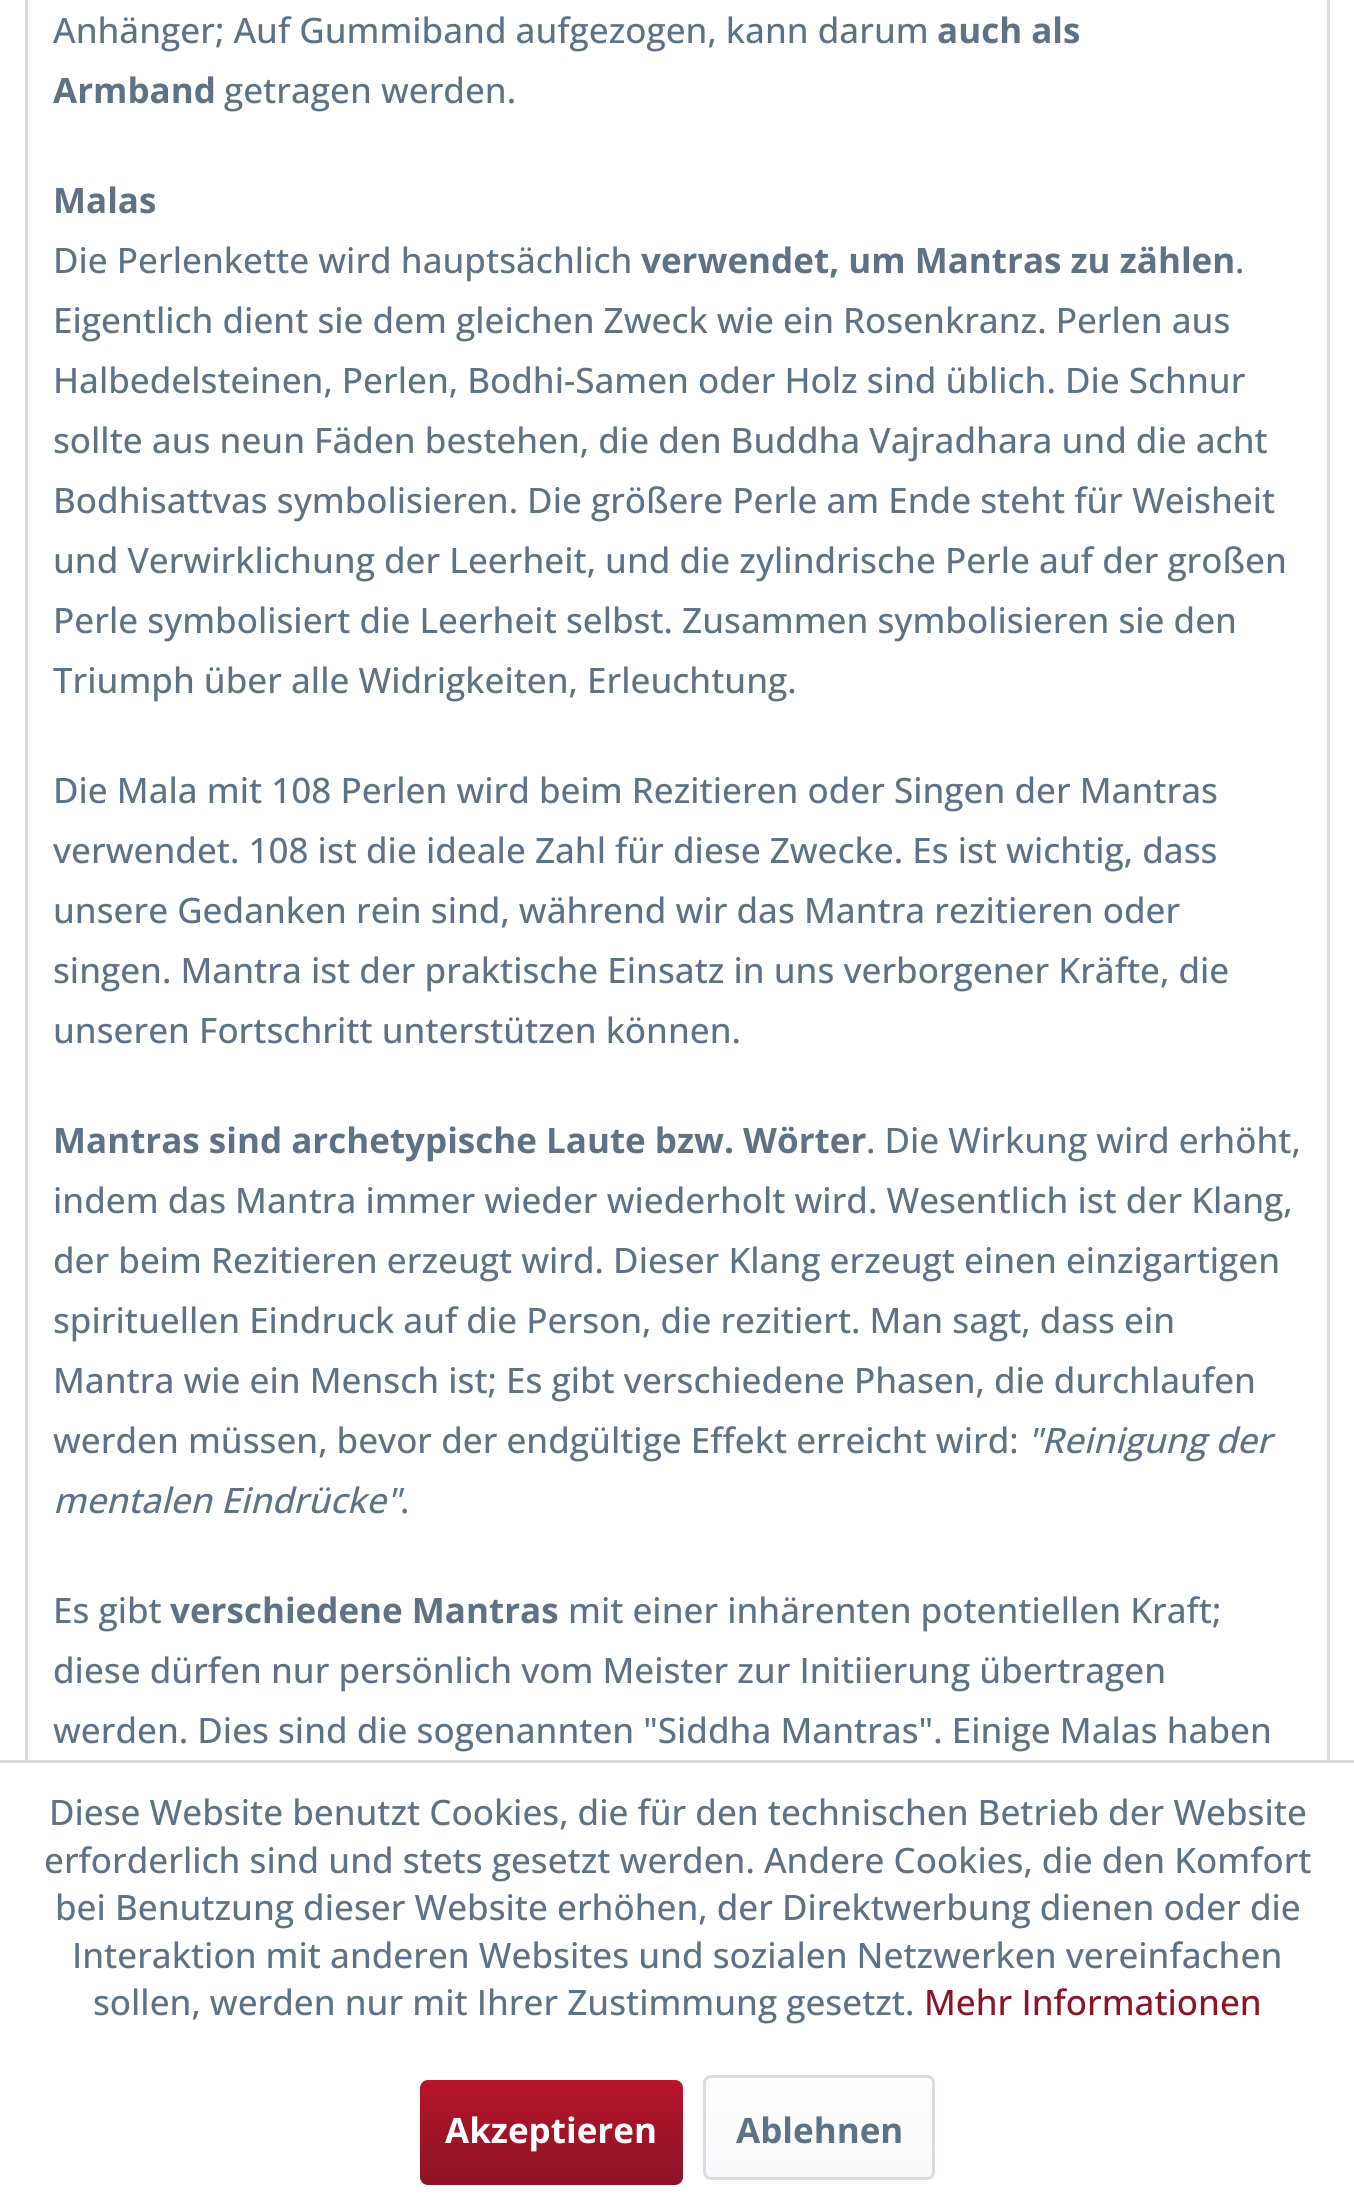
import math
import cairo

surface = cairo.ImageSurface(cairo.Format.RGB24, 1354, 2209)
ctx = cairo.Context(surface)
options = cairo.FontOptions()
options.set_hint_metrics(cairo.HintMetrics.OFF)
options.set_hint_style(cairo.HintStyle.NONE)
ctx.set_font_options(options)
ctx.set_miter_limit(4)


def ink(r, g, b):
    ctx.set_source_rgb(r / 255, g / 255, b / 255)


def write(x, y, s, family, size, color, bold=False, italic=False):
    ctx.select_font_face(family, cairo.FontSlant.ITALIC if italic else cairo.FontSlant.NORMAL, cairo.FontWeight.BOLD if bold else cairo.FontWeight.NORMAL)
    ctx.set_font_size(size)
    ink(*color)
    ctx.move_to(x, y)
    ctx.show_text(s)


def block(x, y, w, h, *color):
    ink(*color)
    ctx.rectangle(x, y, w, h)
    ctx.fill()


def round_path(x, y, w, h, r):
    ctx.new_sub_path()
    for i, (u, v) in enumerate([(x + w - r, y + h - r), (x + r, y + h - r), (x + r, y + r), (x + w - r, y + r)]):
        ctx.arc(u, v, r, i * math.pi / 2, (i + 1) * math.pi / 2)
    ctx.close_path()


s1 = dict(family="Open Sans Medium", size=35, color=(95, 113, 133))
s2 = dict(family="Open Sans", size=35, color=(95, 113, 133), bold=True)
s3 = dict(family="Open Sans Medium", size=35, color=(95, 113, 133), italic=True)
s4 = dict(family="Open Sans Medium", size=35, color=(141, 20, 37))
s5 = dict(family="Open Sans", size=35, color=(255, 255, 255), bold=True)

ink(255, 255, 255)
ctx.paint()
ctx.rectangle(26.5, -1.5, 1302, 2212)
ink(218, 218, 229)
ctx.set_line_width(3)
ctx.stroke()
write(53, 43, "Anhänger; Auf Gummiband aufgezogen, kann darum", **s1)
write(937, 43, "auch als", **s2)
write(53, 103, "Armband", **s2)
write(224, 103, "getragen werden.", **s1)
write(53, 213, "Malas", **s2)
write(53, 273, "Die Perlenkette wird hauptsächlich", **s1)
write(641, 273, "verwendet, um Mantras zu zählen", **s2)
write(1235, 273, ".", **s1)
write(53, 333, "Eigentlich dient sie dem gleichen Zweck wie ein Rosenkranz. Perlen aus", **s1)
write(53, 393, "Halbedelsteinen, Perlen, Bodhi-Samen oder Holz sind üblich. Die Schnur", **s1)
write(53, 453, "sollte aus neun Fäden bestehen, die den Buddha Vajradhara und die acht", **s1)
write(53, 513, "Bodhisattvas symbolisieren. Die größere Perle am Ende steht für Weisheit", **s1)
write(53, 573, "und Verwirklichung der Leerheit, und die zylindrische Perle auf der großen", **s1)
write(53, 633, "Perle symbolisiert die Leerheit selbst. Zusammen symbolisieren sie den", **s1)
write(53, 693, "Triumph über alle Widrigkeiten, Erleuchtung.", **s1)
write(53, 803, "Die Mala mit 108 Perlen wird beim Rezitieren oder Singen der Mantras", **s1)
write(53, 863, "verwendet. 108 ist die ideale Zahl für diese Zwecke. Es ist wichtig, dass", **s1)
write(53, 923, "unsere Gedanken rein sind, während wir das Mantra rezitieren oder", **s1)
write(53, 983, "singen. Mantra ist der praktische Einsatz in uns verborgener Kräfte, die", **s1)
write(53, 1043, "unseren Fortschritt unterstützen können.", **s1)
write(53, 1153, "Mantras sind archetypische Laute bzw. Wörter", **s2)
write(866, 1153, ". Die Wirkung wird erhöht,", **s1)
write(53, 1213, "indem das Mantra immer wieder wiederholt wird. Wesentlich ist der Klang,", **s1)
write(53, 1273, "der beim Rezitieren erzeugt wird. Dieser Klang erzeugt einen einzigartigen", **s1)
write(53, 1333, "spirituellen Eindruck auf die Person, die rezitiert. Man sagt, dass ein", **s1)
write(53, 1393, "Mantra wie ein Mensch ist; Es gibt verschiedene Phasen, die durchlaufen", **s1)
write(53, 1453, "werden müssen, bevor der endgültige Effekt erreicht wird:", **s1)
write(1027, 1453, "\"Reinigung der", **s3)
write(53, 1513, "mentalen Eindrücke\"", **s3)
write(400, 1513, ".", **s1)
write(53, 1623, "Es gibt", **s1)
write(170, 1623, "verschiedene Mantras", **s2)
write(568, 1623, "mit einer inhärenten potentiellen Kraft;", **s1)
write(53, 1683, "diese dürfen nur persönlich vom Meister zur Initiierung übertragen", **s1)
write(53, 1743, "werden. Dies sind die sogenannten \"Siddha Mantras\". Einige Malas haben", **s1)
block(25, 1763, 1305, 446, 255, 255, 255)
block(0, 1760, 1354, 3, 218, 218, 229)
write(49, 1825, "Diese Website benutzt Cookies, die für den technischen Betrieb der Website", **s1)
write(44, 1873, "erforderlich sind und stets gesetzt werden. Andere Cookies, die den Komfort", **s1)
write(55, 1920, "bei Benutzung dieser Website erhöhen, der Direktwerbung dienen oder die", **s1)
write(72, 1968, "Interaktion mit anderen Websites und sozialen Netzwerken vereinfachen", **s1)
write(93, 2015, "sollen, werden nur mit Ihrer Zustimmung gesetzt.", **s1)
write(924, 2015, "Mehr Informationen", **s4)
gradient = cairo.LinearGradient(551, 2080, 551, 2185)
gradient.add_color_stop_rgba(0, 0.714, 0.078, 0.169, 1)
gradient.add_color_stop_rgba(1, 0.553, 0.078, 0.145, 1)
ctx.set_source(gradient)
round_path(420, 2080, 263, 105, 8)
ctx.fill()
write(445, 2143, "Akzeptieren", **s5)
gradient = cairo.LinearGradient(819, 2078, 819, 2178)
gradient.add_color_stop_rgba(0, 1, 1, 1, 1)
gradient.add_color_stop_rgba(1, 0.973, 0.973, 0.98, 1)
ctx.set_source(gradient)
round_path(705, 2078, 228, 100, 5)
ctx.fill()
round_path(704.5, 2076.5, 229, 102, 6.5)
ink(218, 218, 229)
ctx.stroke()
write(736, 2143, "Ablehnen", **s2)
surface.write_to_png("screenshot.png")
